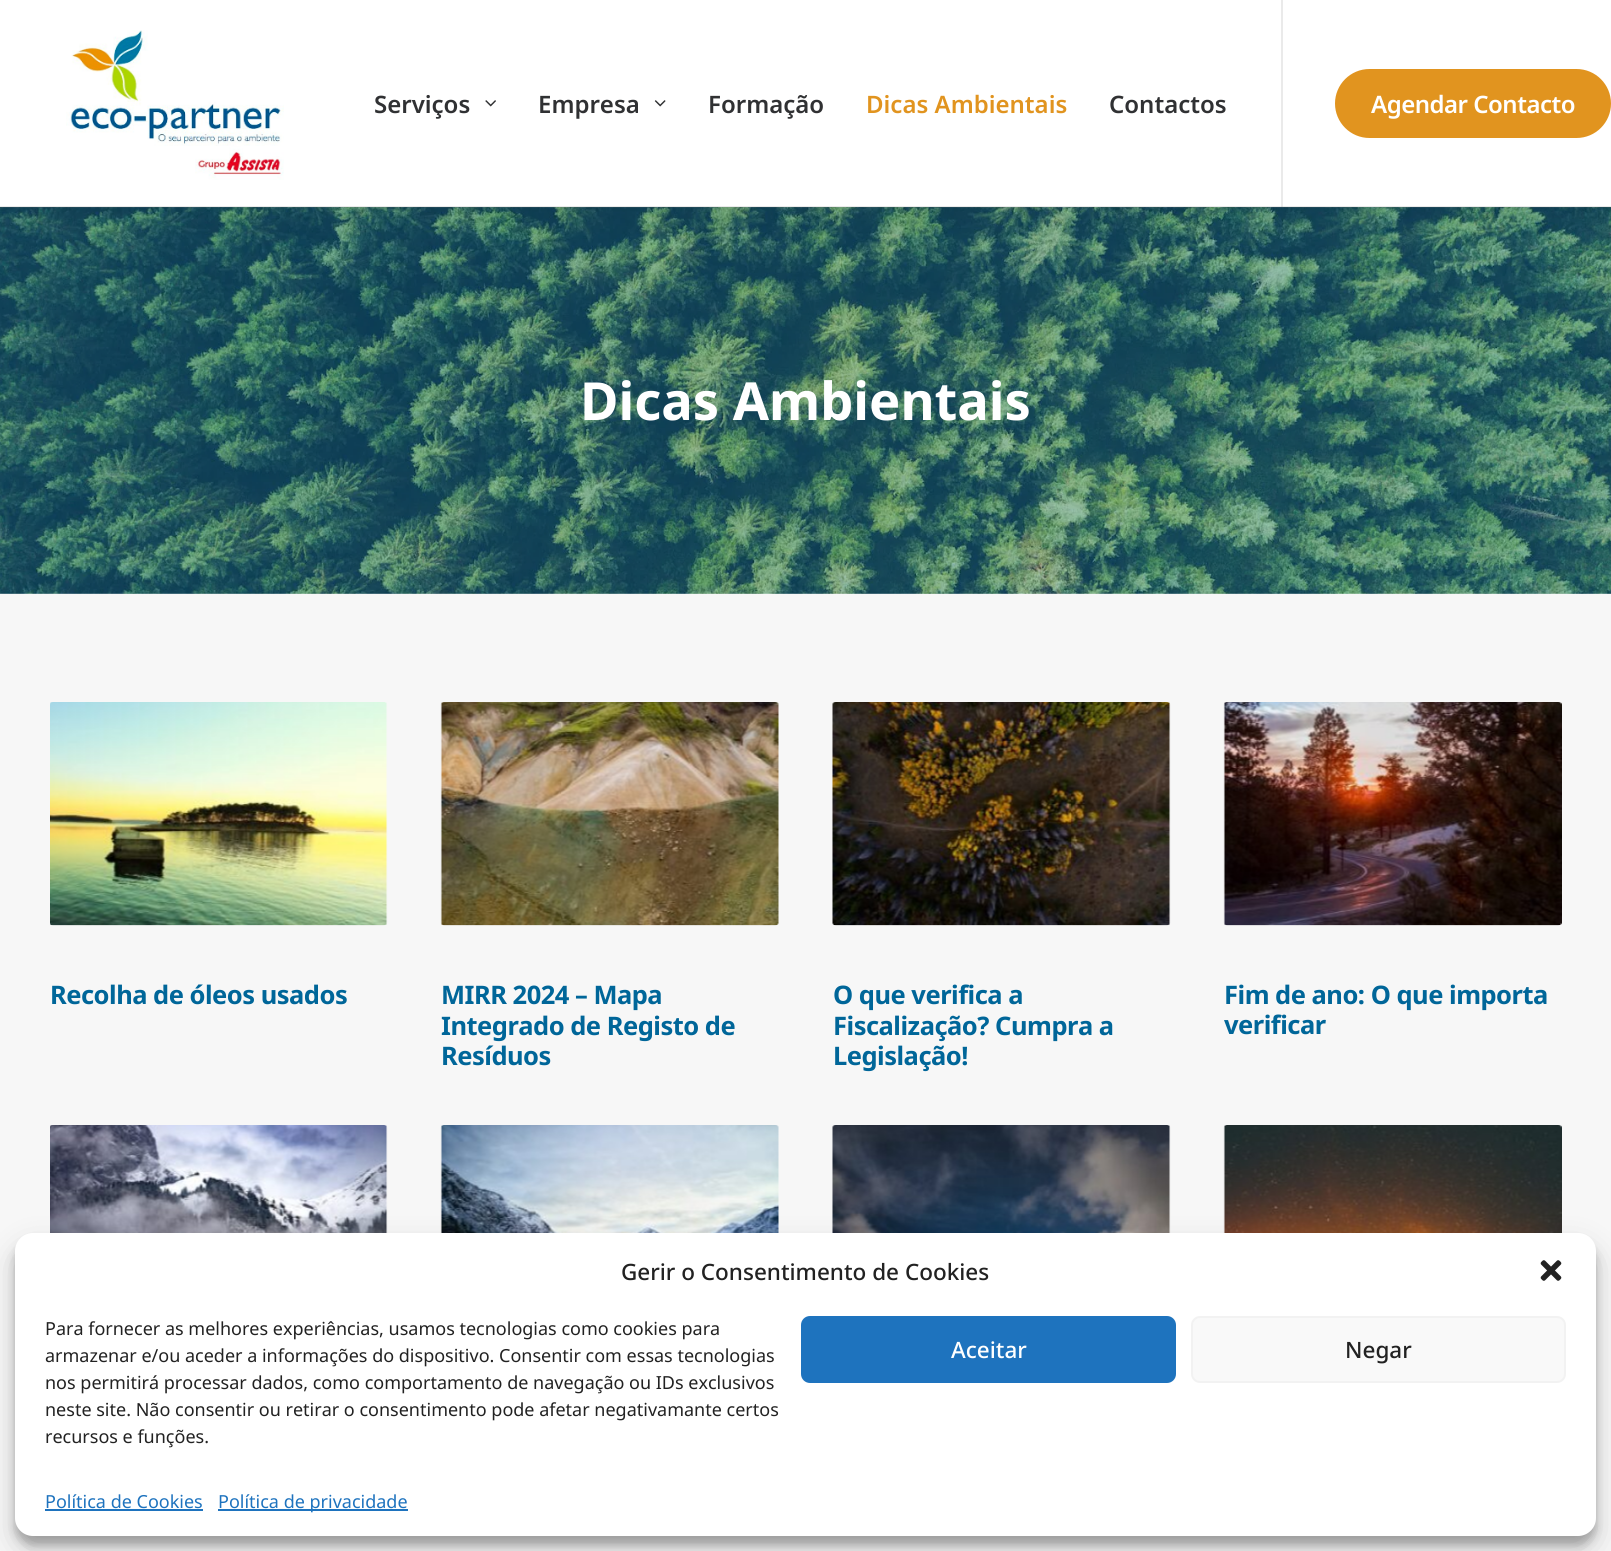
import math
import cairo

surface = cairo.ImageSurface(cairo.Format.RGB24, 1611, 1551)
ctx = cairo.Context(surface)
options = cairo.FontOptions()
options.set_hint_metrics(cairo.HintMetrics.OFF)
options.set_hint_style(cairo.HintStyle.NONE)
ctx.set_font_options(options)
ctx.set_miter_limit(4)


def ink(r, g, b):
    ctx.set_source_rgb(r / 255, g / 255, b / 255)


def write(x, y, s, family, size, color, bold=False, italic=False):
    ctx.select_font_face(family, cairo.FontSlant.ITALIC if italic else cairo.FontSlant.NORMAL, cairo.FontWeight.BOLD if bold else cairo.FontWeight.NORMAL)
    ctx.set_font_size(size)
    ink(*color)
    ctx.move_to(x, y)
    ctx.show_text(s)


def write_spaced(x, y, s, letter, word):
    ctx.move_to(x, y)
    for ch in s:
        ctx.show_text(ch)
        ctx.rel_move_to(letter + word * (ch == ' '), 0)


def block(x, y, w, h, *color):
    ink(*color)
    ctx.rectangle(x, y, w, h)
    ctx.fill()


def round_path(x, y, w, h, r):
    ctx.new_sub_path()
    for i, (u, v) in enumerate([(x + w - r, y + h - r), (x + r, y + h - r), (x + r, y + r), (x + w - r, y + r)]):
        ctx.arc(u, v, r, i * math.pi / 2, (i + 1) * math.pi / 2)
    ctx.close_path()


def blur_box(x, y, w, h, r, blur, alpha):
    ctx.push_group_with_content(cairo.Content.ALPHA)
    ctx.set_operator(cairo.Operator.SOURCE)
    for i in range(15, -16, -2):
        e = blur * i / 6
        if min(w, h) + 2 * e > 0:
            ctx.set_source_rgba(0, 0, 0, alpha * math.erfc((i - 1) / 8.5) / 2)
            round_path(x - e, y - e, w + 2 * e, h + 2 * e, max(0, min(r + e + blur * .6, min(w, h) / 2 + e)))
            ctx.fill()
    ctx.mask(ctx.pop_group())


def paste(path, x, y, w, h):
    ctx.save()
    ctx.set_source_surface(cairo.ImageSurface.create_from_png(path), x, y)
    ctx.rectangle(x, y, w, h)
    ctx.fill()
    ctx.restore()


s1 = dict(family="Noto Sans SemiBold", size=24, color=(48, 49, 51))
s2 = dict(family="Noto Sans SemiBold", size=24, color=(225, 148, 31))
s3 = dict(family="Noto Sans", size=52.5, color=(255, 255, 255), bold=True)
s4 = dict(family="Noto Sans Medium", size=22.5, color=(34, 34, 34))
s5 = dict(family="Noto Sans", size=18, color=(34, 34, 34))
s6 = dict(family="Noto Sans Medium", size=22.5, color=(255, 255, 255))
s7 = dict(family="Noto Sans", size=18, color=(30, 115, 190))

ink(255, 255, 255)
ctx.paint()
paste("pic4.png", 0, 207, 1611, 387)
ink(0, 0, 0)
blur_box(-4, 0, 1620, 207, 0, 22.5, 0.07)
block(0, 0, 1611, 207, 255, 255, 255)
paste("pic1.png", 66, 30, 218, 150)
write(374, 113, "Serviços", **s1)
paste("pic2.png", 485, 100, 11, 7)
write(538, 113, "Empresa", **s1)
paste("pic3.png", 654, 100, 12, 7)
write(708, 113, "Formação", **s1)
write(866, 113, "Dicas Ambientais", **s2)
write(1109, 113, "Contactos", **s1)
ctx.set_source_rgba(0.467, 0.467, 0.467, 0.15)
ctx.rectangle(0, 206, 1611, 2)
ctx.fill()
ctx.rectangle(1281, 0, 2, 207)
ctx.fill()
ink(225, 148, 31)
round_path(1336, 70, 274, 67, 33.5)
ctx.fill_preserve()
ctx.stroke()
ink(255, 255, 255)
write_spaced(1371, 113, "Agendar Contacto", -0.5, 0)
write(580, 420, "Dicas Ambientais", **s3)
block(0, 594, 1611, 957, 247, 247, 247)
paste("pic5.png", 50, 702, 338, 224)
ctx.set_font_size(25.5)
ink(0, 102, 153)
write_spaced(50, 1004, "Recolha de óleos usados", -0.5, 0)
paste("pic6.png", 440, 702, 339, 224)
write_spaced(441, 1004, "MIRR 2024 – Mapa", -0.5, 0)
write_spaced(441, 1035, "Integrado de Registo de", -0.5, 0)
write_spaced(441, 1065, "Resíduos", -0.5, 0)
paste("pic7.png", 832, 702, 339, 224)
write_spaced(833, 1004, "O que verifica a", -0.5, 0)
write_spaced(833, 1035, "Fiscalização? Cumpra a", -0.5, 0)
write_spaced(833, 1065, "Legislação!", -0.5, 0)
paste("pic8.png", 1223, 702, 339, 224)
write_spaced(1224, 1004, "Fim de ano: O que importa", -0.5, 0)
write_spaced(1224, 1034, "verificar", -0.5, 0)
paste("pic9.png", 50, 1125, 338, 108)
paste("pic10.png", 440, 1125, 339, 108)
paste("pic11.png", 832, 1125, 339, 108)
paste("pic12.png", 1223, 1125, 339, 108)
ink(0, 0, 0)
blur_box(15, 1242, 1581, 303, 18, 4.5, 0.23)
blur_box(15, 1248, 1581, 303, 18, 15, 0.19)
ink(255, 255, 255)
round_path(15, 1233, 1581, 303, 18)
ctx.fill()
write(621, 1280, "Gerir o Consentimento de Cookies", **s4)
paste("pic13.png", 1540, 1260, 22, 21)
write(45, 1335, "Para fornecer as melhores experiências, usamos tecnologias como cookies para", **s5)
write(45, 1362, "armazenar e/ou aceder a informações do dispositivo. Consentir com essas tecnologias", **s5)
write(45, 1389, "nos permitirá processar dados, como comportamento de navegação ou IDs exclusivos", **s5)
write(45, 1416, "neste site. Não consentir ou retirar o consentimento pode afetar negativamante certos", **s5)
write(45, 1443, "recursos e funções.", **s5)
ink(30, 115, 190)
round_path(802, 1317, 373, 65, 8)
ctx.fill_preserve()
ctx.stroke()
write(951, 1358, "Aceitar", **s6)
ink(249, 249, 249)
round_path(1192, 1317, 373, 65, 8)
ctx.fill_preserve()
ink(242, 242, 242)
ctx.stroke()
write(1345, 1358, "Negar", **s4)
write(45, 1508, "Política de Cookies", **s7)
block(45, 1509, 158, 2, 30, 115, 190)
block(218, 1509, 190, 2, 30, 115, 190)
write(218, 1508, "Política de privacidade", **s7)
surface.write_to_png("screenshot.png")
